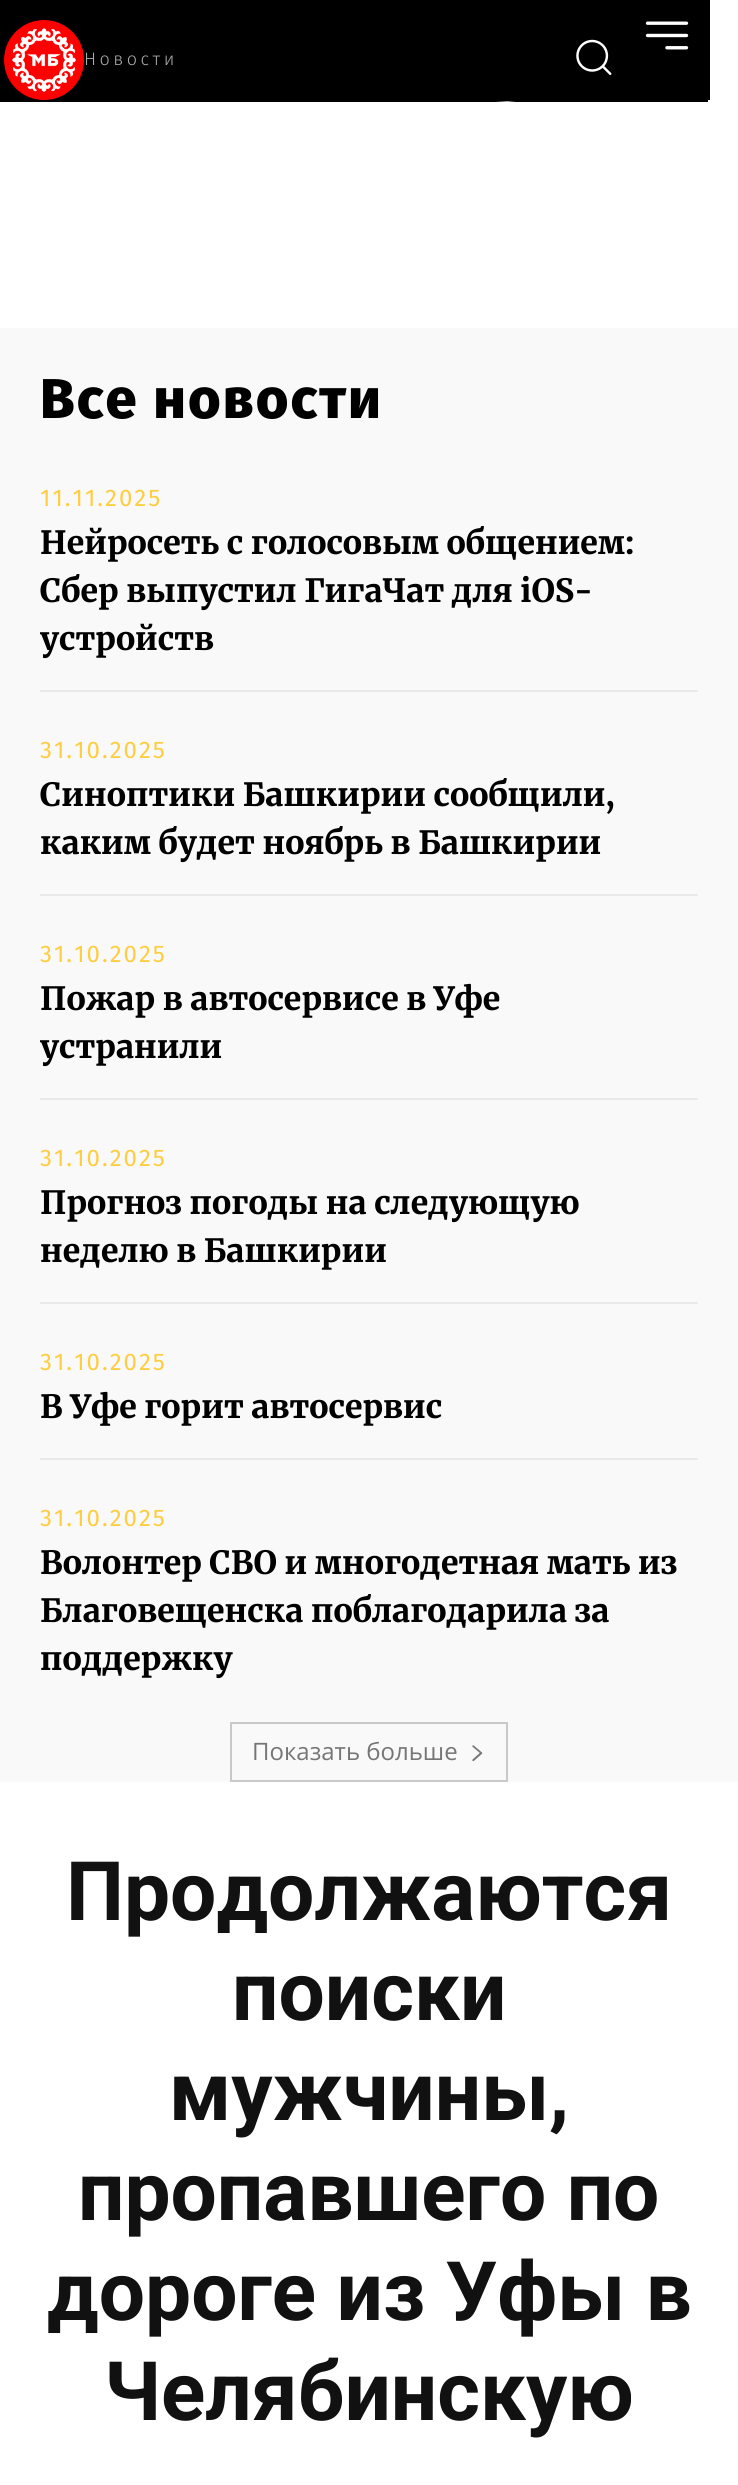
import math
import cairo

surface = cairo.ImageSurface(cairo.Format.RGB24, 738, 2485)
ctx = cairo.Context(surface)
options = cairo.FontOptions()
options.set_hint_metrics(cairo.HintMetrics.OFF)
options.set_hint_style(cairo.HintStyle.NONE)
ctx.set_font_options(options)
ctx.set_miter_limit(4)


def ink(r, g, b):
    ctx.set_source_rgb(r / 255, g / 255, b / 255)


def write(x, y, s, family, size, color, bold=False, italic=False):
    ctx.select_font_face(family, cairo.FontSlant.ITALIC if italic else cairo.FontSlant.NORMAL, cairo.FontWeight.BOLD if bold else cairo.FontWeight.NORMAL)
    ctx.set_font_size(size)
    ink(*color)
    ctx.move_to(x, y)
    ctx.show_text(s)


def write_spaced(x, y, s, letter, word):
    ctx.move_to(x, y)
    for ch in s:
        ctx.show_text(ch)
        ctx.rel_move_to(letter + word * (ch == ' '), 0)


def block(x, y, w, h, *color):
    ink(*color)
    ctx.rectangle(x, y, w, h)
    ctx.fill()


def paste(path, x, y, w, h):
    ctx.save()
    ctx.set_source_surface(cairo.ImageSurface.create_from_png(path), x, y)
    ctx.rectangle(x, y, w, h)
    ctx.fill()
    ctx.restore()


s1 = dict(family="Merriweather ExtraBold", size=32, color=(0, 0, 0))
s2 = dict(family="Open Sans", size=24, color=(118, 118, 118))
s3 = dict(family="Roboto", size=82, color=(17, 17, 17), bold=True)

ink(255, 255, 255)
ctx.paint()
block(0, 0, 710, 100, 0, 0, 0)
paste("pic1.png", 645, 21, 44, 29)
paste("pic2.png", 4, 20, 80, 80)
ctx.select_font_face("Fira Sans Light")
ctx.set_font_size(18)
ink(170, 170, 170)
write_spaced(84, 65, "Новости", 3.5, 0)
paste("pic3.png", 576, 39, 36, 36)
ctx.save()
ctx.rectangle(0, 100, 708, 2)
ctx.clip()
ink(0, 0, 0)
ctx.new_path()
ctx.move_to(-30, 88)
ctx.line_to(-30, 120)
ctx.line_to(49, 129)
ctx.line_to(192, 114)
ctx.line_to(295, 119)
ctx.line_to(507, 101)
ctx.line_to(708, 124)
ctx.line_to(708, 88)
ctx.close_path()
ctx.fill()
ctx.set_source_rgba(0, 0, 0, 0.3)
ctx.new_path()
ctx.move_to(-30, 88)
ctx.line_to(-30, 112)
ctx.line_to(152, 124)
ctx.line_to(320, 101)
ctx.line_to(588, 117)
ctx.line_to(708, 101)
ctx.line_to(708, 88)
ctx.close_path()
ctx.fill()
ctx.restore()
block(0, 328, 738, 1454, 249, 249, 249)
ctx.select_font_face("Fira Sans ExtraBold")
ctx.set_font_size(56)
ink(0, 0, 0)
write_spaced(40, 418, "Все новости", 2, 0)
ctx.select_font_face("Fira Sans")
ctx.set_font_size(24)
ink(255, 205, 63)
write_spaced(40, 506, "11.11.2025", 2, 0)
write(40, 554, "Нейросеть с голосовым общением:", **s1)
write(40, 602, "Сбер выпустил ГигаЧат для iOS-", **s1)
write(40, 650, "устройств", **s1)
block(40, 690, 658, 2, 234, 234, 234)
ctx.select_font_face("Fira Sans")
ctx.set_font_size(24)
ink(255, 205, 63)
write_spaced(40, 758, "31.10.2025", 2, 0)
write(40, 806, "Синоптики Башкирии сообщили,", **s1)
write(40, 854, "каким будет ноябрь в Башкирии", **s1)
block(40, 894, 658, 2, 234, 234, 234)
ctx.select_font_face("Fira Sans")
ctx.set_font_size(24)
ink(255, 205, 63)
write_spaced(40, 962, "31.10.2025", 2, 0)
write(40, 1010, "Пожар в автосервисе в Уфе", **s1)
write(40, 1058, "устранили", **s1)
block(40, 1098, 658, 2, 234, 234, 234)
ctx.select_font_face("Fira Sans")
ctx.set_font_size(24)
ink(255, 205, 63)
write_spaced(40, 1166, "31.10.2025", 2, 0)
write(40, 1214, "Прогноз погоды на следующую", **s1)
write(40, 1262, "неделю в Башкирии", **s1)
block(40, 1302, 658, 2, 234, 234, 234)
ctx.select_font_face("Fira Sans")
ctx.set_font_size(24)
ink(255, 205, 63)
write_spaced(40, 1370, "31.10.2025", 2, 0)
write(40, 1418, "В Уфе горит автосервис", **s1)
block(40, 1458, 658, 2, 234, 234, 234)
ctx.select_font_face("Fira Sans")
ctx.set_font_size(24)
ink(255, 205, 63)
write_spaced(40, 1526, "31.10.2025", 2, 0)
write(40, 1574, "Волонтер СВО и многодетная мать из", **s1)
write(40, 1622, "Благовещенска поблагодарила за", **s1)
write(40, 1670, "поддержку", **s1)
ctx.rectangle(231, 1723, 276, 58)
ink(201, 201, 201)
ctx.stroke()
write(252, 1760, "Показать больше", **s2)
paste("pic4.png", 472, 1745, 11, 17)
write(66, 1920, "Продолжаются", **s3)
write(232, 2020, "поиски", **s3)
write(169, 2120, "мужчины,", **s3)
write(78, 2220, "пропавшего по", **s3)
write(47, 2320, "дороге из Уфы в", **s3)
write(104, 2420, "Челябинскую", **s3)
surface.write_to_png("screenshot.png")
